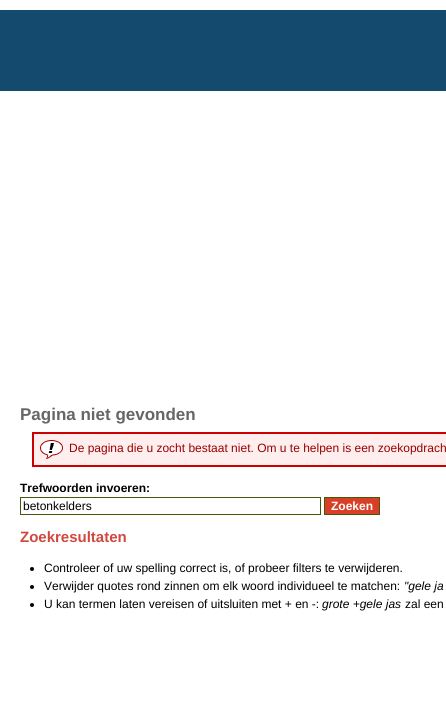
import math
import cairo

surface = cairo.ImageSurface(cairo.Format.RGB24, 446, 702)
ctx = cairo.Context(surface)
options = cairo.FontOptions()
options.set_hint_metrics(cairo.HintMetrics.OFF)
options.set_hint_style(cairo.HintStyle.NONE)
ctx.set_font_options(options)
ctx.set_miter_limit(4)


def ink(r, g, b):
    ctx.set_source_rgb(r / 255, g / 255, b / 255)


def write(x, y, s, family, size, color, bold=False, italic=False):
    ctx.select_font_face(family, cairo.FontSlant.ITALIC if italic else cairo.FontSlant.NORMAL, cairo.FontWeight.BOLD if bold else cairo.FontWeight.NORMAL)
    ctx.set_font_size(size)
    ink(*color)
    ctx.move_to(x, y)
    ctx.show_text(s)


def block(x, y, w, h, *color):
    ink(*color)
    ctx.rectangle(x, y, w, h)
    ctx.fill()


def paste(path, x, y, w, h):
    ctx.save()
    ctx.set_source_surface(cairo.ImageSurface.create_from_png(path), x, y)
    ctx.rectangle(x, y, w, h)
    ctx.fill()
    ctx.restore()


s1 = dict(family="Liberation Sans", size=17, color=(102, 102, 102), bold=True)
s2 = dict(family="Liberation Sans", size=12, color=(153, 0, 0))
s3 = dict(family="Liberation Sans", size=12, color=(0, 0, 0), bold=True)
s4 = dict(family="Liberation Sans", size=12, color=(0, 0, 0))
s5 = dict(family="Liberation Sans", size=12, color=(255, 255, 255), bold=True)
s6 = dict(family="Liberation Sans", size=15, color=(209, 72, 63), bold=True)
s7 = dict(family="Liberation Sans", size=12, color=(0, 0, 0), italic=True)

ink(255, 255, 255)
ctx.paint()
block(0, 10, 446, 81, 20, 74, 110)
write(20, 420, "Pagina niet gevonden", **s1)
block(34, 434, 412, 31, 255, 238, 238)
paste("pic1.png", 40, 440, 23, 19)
ctx.rectangle(33, 433, 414, 33)
ink(204, 0, 0)
ctx.stroke()
write(69, 452, "De pagina die u zocht bestaat niet. Om u te helpen is een zoekopdrach", **s2)
write(20, 492, "Trefwoorden invoeren:", **s3)
ctx.rectangle(20.5, 497.5, 300, 17)
ink(64, 89, 11)
ctx.set_line_width(1)
ctx.stroke()
write(23, 510, "betonkelders", **s4)
ink(217, 63, 39)
ctx.rectangle(324.5, 497.5, 55, 17)
ctx.fill_preserve()
ink(64, 89, 11)
ctx.stroke()
write(331, 510, "Zoeken", **s5)
write(20, 542, "Zoekresultaten", **s6)
ink(0, 0, 0)
ctx.new_path()
ctx.arc(32, 569, 2, 0, 2 * math.pi)
ctx.fill()
write(44, 572, "Controleer of uw spelling correct is, of probeer filters te verwijderen.", **s4)
ctx.new_path()
ctx.arc(32, 587, 2, 0, 2 * math.pi)
ctx.fill()
write(44, 590, "Verwijder quotes rond zinnen om elk woord individueel te matchen:", **s4)
write(404, 590, "\"gele ja", **s7)
ctx.new_path()
ctx.arc(32, 605, 2, 0, 2 * math.pi)
ctx.fill()
write(44, 608, "U kan termen laten vereisen of uitsluiten met + en -:", **s4)
write(322, 608, "grote +gele jas", **s7)
write(405, 608, "zal een", **s4)
surface.write_to_png("screenshot.png")
